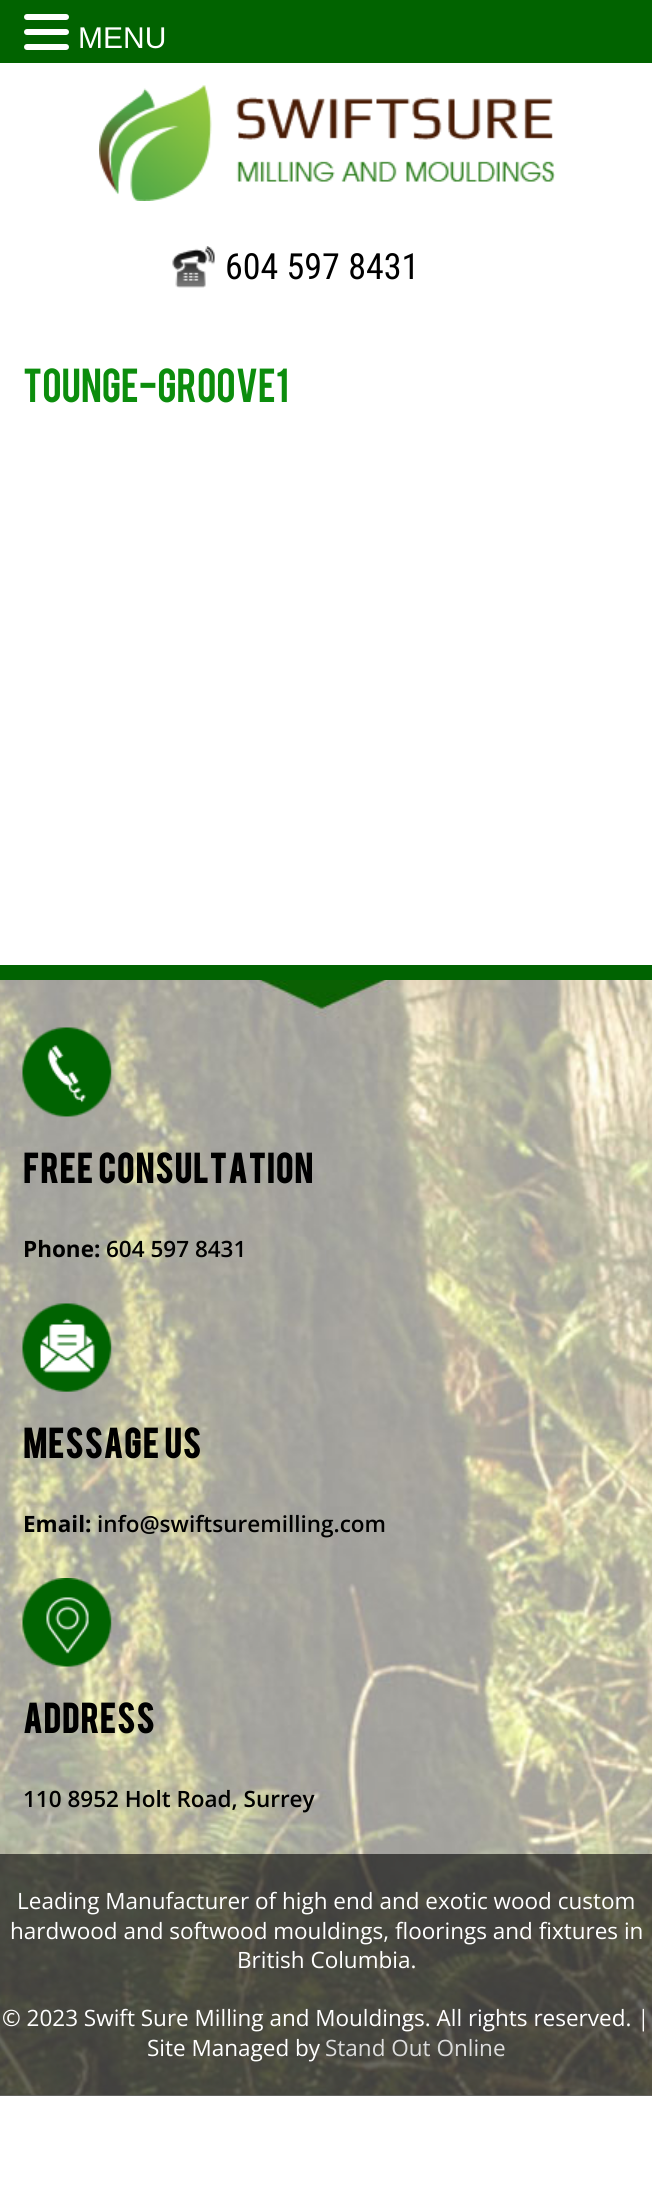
import math
import cairo

surface = cairo.ImageSurface(cairo.Format.RGB24, 652, 2188)
ctx = cairo.Context(surface)
options = cairo.FontOptions()
options.set_hint_metrics(cairo.HintMetrics.OFF)
options.set_hint_style(cairo.HintStyle.NONE)
ctx.set_font_options(options)
ctx.set_miter_limit(4)


def ink(r, g, b):
    ctx.set_source_rgb(r / 255, g / 255, b / 255)


def write(x, y, s, family, size, color, bold=False, italic=False):
    ctx.select_font_face(family, cairo.FontSlant.ITALIC if italic else cairo.FontSlant.NORMAL, cairo.FontWeight.BOLD if bold else cairo.FontWeight.NORMAL)
    ctx.set_font_size(size)
    ink(*color)
    ctx.move_to(x, y)
    ctx.show_text(s)


def write_spaced(x, y, s, letter, word):
    ctx.move_to(x, y)
    for ch in s:
        ctx.show_text(ch)
        ctx.rel_move_to(letter + word * (ch == ' '), 0)


def block(x, y, w, h, *color):
    ink(*color)
    ctx.rectangle(x, y, w, h)
    ctx.fill()


def round_path(x, y, w, h, r):
    ctx.new_sub_path()
    for i, (u, v) in enumerate([(x + w - r, y + h - r), (x + r, y + h - r), (x + r, y + r), (x + w - r, y + r)]):
        ctx.arc(u, v, r, i * math.pi / 2, (i + 1) * math.pi / 2)
    ctx.close_path()


def paste(path, x, y, w, h):
    ctx.save()
    ctx.set_source_surface(cairo.ImageSurface.create_from_png(path), x, y)
    ctx.rectangle(x, y, w, h)
    ctx.fill()
    ctx.restore()


s1 = dict(family="Liberation Sans", size=30, color=(255, 255, 255))
s2 = dict(family="Roboto Condensed", size=36, color=(0, 0, 0))
s3 = dict(family="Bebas", size=37.5, color=(12, 141, 13))
s4 = dict(family="Open Sans", size=22.5, color=(0, 0, 0), bold=True)
s5 = dict(family="Open Sans SemiBold", size=22.5, color=(0, 0, 0))
s6 = dict(family="Open Sans", size=22.5, color=(255, 255, 255))
s7 = dict(family="Open Sans", size=22.5, color=(221, 221, 221))

ink(255, 255, 255)
ctx.paint()
block(0, 0, 652, 63, 1, 99, 0)
ink(255, 255, 255)
round_path(24, 14, 45, 6, 3)
ctx.fill()
round_path(24, 29, 45, 6, 3)
ctx.fill()
round_path(24, 44, 45, 6, 3)
ctx.fill()
write(78, 48, "MENU", **s1)
paste("pic1.png", 99, 85, 456, 116)
paste("pic2.png", 172, 246, 43, 42)
write(225, 279, "604 597 8431", **s2)
write(23, 402, "tounge-groove1", **s3)
paste("pic3.png", 0, 980, 652, 1116)
block(0, 965, 652, 15, 0, 99, 1)
paste("pic4.png", 22, 1027, 90, 90)
ctx.select_font_face("Bebas", cairo.FontSlant.NORMAL, cairo.FontWeight.BOLD)
ctx.set_font_size(33)
ink(0, 0, 0)
write_spaced(23, 1183, "free consultation", 1.5, 0)
write(23, 1257, "Phone:", **s4)
write(106, 1257, "604 597 8431", **s5)
paste("pic5.png", 22, 1303, 90, 89)
ctx.select_font_face("Bebas", cairo.FontSlant.NORMAL, cairo.FontWeight.BOLD)
ctx.set_font_size(33)
write_spaced(23, 1458, "Message us", 1.5, 0)
write(23, 1532, "Email:", **s4)
write(97, 1532, "info@swiftsuremilling.com", **s5)
paste("pic6.png", 22, 1578, 90, 89)
ctx.select_font_face("Bebas", cairo.FontSlant.NORMAL, cairo.FontWeight.BOLD)
ctx.set_font_size(33)
write_spaced(23, 1733, "address", 1.5, 0)
write(23, 1807, "110 8952 Holt Road, Surrey", **s5)
ctx.set_source_rgba(0, 0, 0, 0.6)
ctx.rectangle(0, 1854, 652, 242)
ctx.fill()
write(17, 1909, "Leading Manufacturer of high end and exotic wood custom", **s6)
write(10, 1939, "hardwood and softwood mouldings, floorings and fixtures in", **s6)
write(237, 1968, "British Columbia.", **s6)
write(2, 2026, "© 2023 Swift Sure Milling and Mouldings. All rights reserved. |", **s6)
write(147, 2056, "Site Managed by", **s6)
write(325, 2056, "Stand Out Online", **s7)
surface.write_to_png("screenshot.png")
